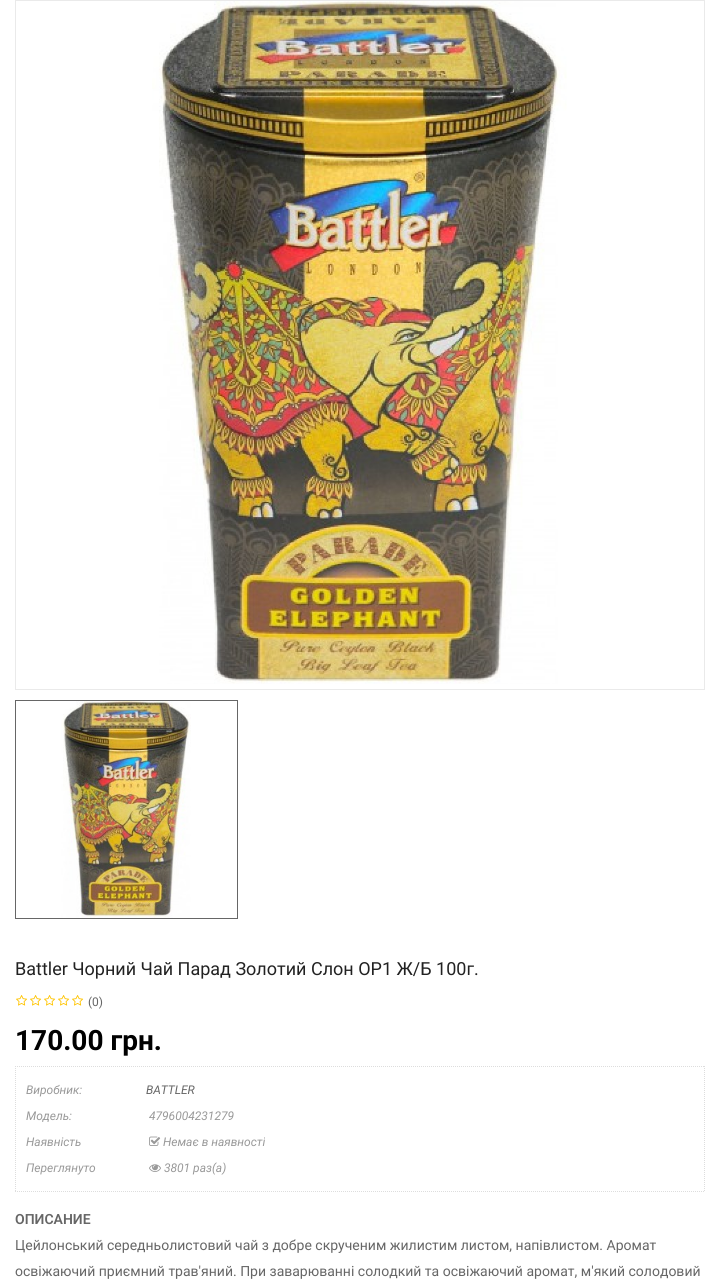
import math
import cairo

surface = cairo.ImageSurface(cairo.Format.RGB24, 720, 1279)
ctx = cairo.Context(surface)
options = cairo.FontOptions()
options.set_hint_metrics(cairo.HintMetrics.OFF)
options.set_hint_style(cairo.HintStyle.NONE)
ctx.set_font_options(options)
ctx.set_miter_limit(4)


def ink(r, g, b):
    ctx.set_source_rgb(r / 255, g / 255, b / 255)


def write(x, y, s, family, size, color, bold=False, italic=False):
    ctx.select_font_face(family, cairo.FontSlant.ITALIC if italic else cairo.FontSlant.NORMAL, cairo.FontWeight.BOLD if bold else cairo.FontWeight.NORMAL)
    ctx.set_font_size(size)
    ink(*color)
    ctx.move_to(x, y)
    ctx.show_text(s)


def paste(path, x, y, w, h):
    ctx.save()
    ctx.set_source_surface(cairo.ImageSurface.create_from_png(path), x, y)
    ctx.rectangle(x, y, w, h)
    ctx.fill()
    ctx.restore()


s1 = dict(family="Roboto", size=18, color=(34, 34, 34))
s2 = dict(family="Roboto", size=12, color=(102, 102, 102))
s3 = dict(family="Roboto", size=28, color=(0, 0, 0), bold=True)
s4 = dict(family="Roboto", size=12, color=(153, 153, 153), italic=True)
s5 = dict(family="Roboto", size=12, color=(102, 102, 102), italic=True)
s6 = dict(family="Roboto SemiBold", size=14, color=(102, 102, 102))
s7 = dict(family="Roboto", size=14, color=(102, 102, 102))

ink(255, 255, 255)
ctx.paint()
ctx.rectangle(15.5, 0.5, 689, 689)
ink(234, 234, 234)
ctx.set_line_width(1)
ctx.stroke()
paste("pic1.png", 152, 1, 415, 683)
ctx.rectangle(15.5, 700.5, 222, 218)
ink(102, 102, 102)
ctx.stroke()
paste("pic2.png", 61, 701, 130, 217)
write(15, 975, "Battler Чорний Чай Парад Золотий Слон OP1 Ж/Б 100г.", **s1)
paste("pic3.png", 16, 995, 12, 11)
paste("pic3.png", 30, 995, 12, 11)
paste("pic3.png", 44, 995, 12, 11)
paste("pic3.png", 58, 995, 12, 11)
paste("pic3.png", 72, 995, 12, 11)
write(88, 1006, "(0)", **s2)
write(15, 1050, "170.00 грн.", **s3)
ctx.new_path()
ctx.move_to(15, 1066.5)
ctx.line_to(705, 1066.5)
ink(221, 221, 221)
ctx.set_dash([1, 1])
ctx.stroke()
ctx.new_path()
ctx.move_to(704.5, 1066)
ctx.line_to(704.5, 1192)
ctx.stroke()
ctx.new_path()
ctx.move_to(15, 1191.5)
ctx.line_to(705, 1191.5)
ctx.stroke()
ctx.new_path()
ctx.move_to(15.5, 1066)
ctx.line_to(15.5, 1192)
ctx.stroke()
write(26, 1094, "Виробник:", **s4)
write(146, 1094, "BATTLER", **s5)
write(26, 1120, "Модель:", **s4)
write(149, 1120, "4796004231279", **s4)
write(26, 1146, "Наявність", **s4)
paste("pic4.png", 149, 1136, 12, 10)
write(163, 1146, "Немає в наявності", **s4)
write(26, 1172, "Переглянуто", **s4)
paste("pic5.png", 149, 1164, 12, 8)
write(164, 1172, "3801 раз(а)", **s4)
write(15, 1224, "ОПИСАНИЕ", **s6)
write(15, 1250, "Цейлонський середньолистовий чай з добре скрученим жилистим листом, напівлистом. Аромат", **s7)
write(15, 1276, "освіжаючий приємний трав'яний. При заварюванні солодкий та освіжаючий аромат, м'який солодовий", **s7)
surface.write_to_png("screenshot.png")
